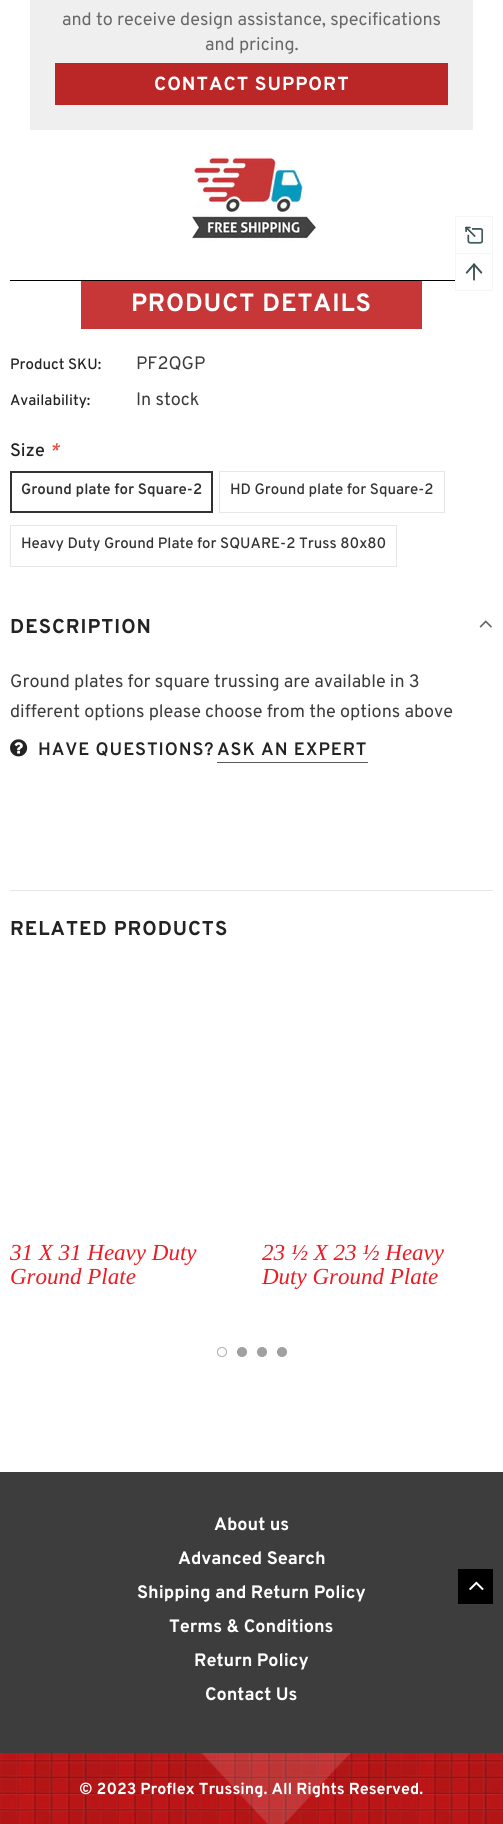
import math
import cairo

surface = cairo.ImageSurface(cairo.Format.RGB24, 503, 1824)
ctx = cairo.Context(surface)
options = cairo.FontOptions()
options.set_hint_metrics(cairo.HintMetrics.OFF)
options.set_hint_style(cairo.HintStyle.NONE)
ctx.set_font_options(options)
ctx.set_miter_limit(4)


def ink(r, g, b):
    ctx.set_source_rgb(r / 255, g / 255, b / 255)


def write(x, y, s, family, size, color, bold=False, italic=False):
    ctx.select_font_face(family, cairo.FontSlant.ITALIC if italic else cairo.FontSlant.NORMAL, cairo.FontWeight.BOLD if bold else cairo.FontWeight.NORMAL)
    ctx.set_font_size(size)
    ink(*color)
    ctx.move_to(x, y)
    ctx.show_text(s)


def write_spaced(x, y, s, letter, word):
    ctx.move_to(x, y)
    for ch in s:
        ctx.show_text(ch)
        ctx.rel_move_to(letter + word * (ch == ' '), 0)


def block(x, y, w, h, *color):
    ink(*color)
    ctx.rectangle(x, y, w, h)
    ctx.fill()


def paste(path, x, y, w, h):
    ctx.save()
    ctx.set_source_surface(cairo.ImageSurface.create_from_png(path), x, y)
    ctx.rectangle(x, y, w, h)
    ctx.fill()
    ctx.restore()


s1 = dict(family="Overpass", size=18, color=(106, 103, 103))
s2 = dict(family="Overpass Medium", size=15, color=(35, 35, 35))
s3 = dict(family="Overpass", size=18, color=(60, 60, 60))
s4 = dict(family="Overpass Medium", size=18, color=(35, 35, 35))
s5 = dict(family="Overpass Medium", size=18, color=(233, 81, 68), italic=True)
s6 = dict(family="Overpass SemiBold", size=15, color=(50, 50, 50))
s7 = dict(family="Overpass Medium", size=15, color=(50, 50, 50))
s8 = dict(family="Liberation Serif", size=23, color=(237, 27, 36), italic=True)
s9 = dict(family="Overpass", size=18, color=(255, 255, 255), bold=True)
s10 = dict(family="Overpass", size=16, color=(255, 255, 255), bold=True)

ink(255, 255, 255)
ctx.paint()
block(30, 0, 443, 130, 239, 239, 239)
write(62, 25, "and to receive design assistance, specifications", **s1)
write(205, 50, "and pricing.", **s1)
block(55, 63, 393, 42, 187, 39, 39)
ctx.select_font_face("Overpass", cairo.FontSlant.NORMAL, cairo.FontWeight.BOLD)
ctx.set_font_size(19)
ink(255, 255, 255)
write_spaced(154, 90, "CONTACT SUPPORT", 1, 0)
paste("pic1.png", 192, 157, 124, 84)
block(10, 280, 445, 1, 0, 0, 0)
block(81, 281, 341, 48, 199, 55, 55)
ctx.set_font_size(25)
ink(255, 255, 255)
write_spaced(131, 311, "PRODUCT DETAILS", 0.9, 0)
write(10, 369, "Product SKU:", **s2)
write(136, 369, "PF2QGP", **s3)
write(10, 405, "Availability:", **s2)
write(136, 405, "In stock", **s3)
write(10, 456, "Size", **s4)
write(49, 456, "*", **s5)
ctx.rectangle(11, 472, 201, 40)
ink(50, 50, 50)
ctx.stroke()
write(21, 494, "Ground plate for Square-2", **s6)
ctx.rectangle(219.5, 471.5, 225, 41)
ink(231, 231, 231)
ctx.set_line_width(1)
ctx.stroke()
write(230, 494, "HD Ground plate for Square-2", **s7)
ctx.rectangle(10.5, 525.5, 386, 41)
ink(231, 231, 231)
ctx.stroke()
write(21, 548, "Heavy Duty Ground Plate for SQUARE-2 Truss 80x80", **s7)
ctx.select_font_face("Overpass", cairo.FontSlant.NORMAL, cairo.FontWeight.BOLD)
ctx.set_font_size(20)
ink(35, 35, 35)
write_spaced(10, 633, "DESCRIPTION", 1, 0)
paste("pic2.png", 479, 620, 13, 8)
write(10, 687, "Ground plates for square trussing are available in 3", **s3)
write(10, 717, "different options please choose from the options above", **s3)
paste("pic3.png", 10, 739, 18, 18)
ctx.select_font_face("Overpass SemiBold")
ink(35, 35, 35)
write_spaced(38, 755, "HAVE QUESTIONS?", 0.9, 0)
write_spaced(217, 755, "ASK AN EXPERT", 0.9, 0)
block(217, 762, 151, 1, 90, 90, 90)
block(10, 890, 483, 1, 230, 230, 230)
ctx.select_font_face("Overpass", cairo.FontSlant.NORMAL, cairo.FontWeight.BOLD)
ctx.set_font_size(20)
ink(35, 35, 35)
write_spaced(10, 935, "RELATED PRODUCTS", 1, 0)
write(10, 1260, "31 X 31 Heavy Duty", **s8)
write(10, 1284, "Ground Plate", **s8)
write(262, 1260, "23 ½ X 23 ½ Heavy", **s8)
write(262, 1284, "Duty Ground Plate", **s8)
ctx.new_path()
ctx.arc(222, 1352, 4.5, 0, 2 * math.pi)
ink(169, 169, 169)
ctx.stroke()
ink(160, 160, 160)
ctx.arc(242, 1352, 4.5, 0, 2 * math.pi)
ctx.fill_preserve()
ctx.stroke()
ctx.arc(262, 1352, 4.5, 0, 2 * math.pi)
ctx.fill_preserve()
ctx.stroke()
ctx.arc(282, 1352, 4.5, 0, 2 * math.pi)
ctx.fill_preserve()
ctx.stroke()
block(0, 1472, 503, 352, 61, 61, 61)
write(214, 1530, "About us", **s9)
write(178, 1564, "Advanced Search", **s9)
write(137, 1598, "Shipping and Return Policy", **s9)
write(169, 1632, "Terms & Conditions", **s9)
write(194, 1666, "Return Policy", **s9)
write(205, 1700, "Contact Us", **s9)
paste("pic4.png", 0, 1753, 503, 71)
write(79, 1794, "© 2023 Proflex Trussing. All Rights Reserved.", **s10)
paste("pic5.png", 201, 1753, 150, 71)
block(458, 1569, 35, 35, 0, 0, 0)
paste("pic6.png", 469, 1581, 15, 9)
block(455, 216, 38, 1, 245, 245, 246)
block(492, 216, 1, 37, 245, 245, 246)
block(455, 216, 1, 37, 245, 245, 246)
paste("pic7.png", 465, 226, 18, 18)
ctx.rectangle(455.5, 253.5, 37, 37)
ctx.stroke()
paste("pic8.png", 465, 263, 18, 18)
surface.write_to_png("screenshot.png")
